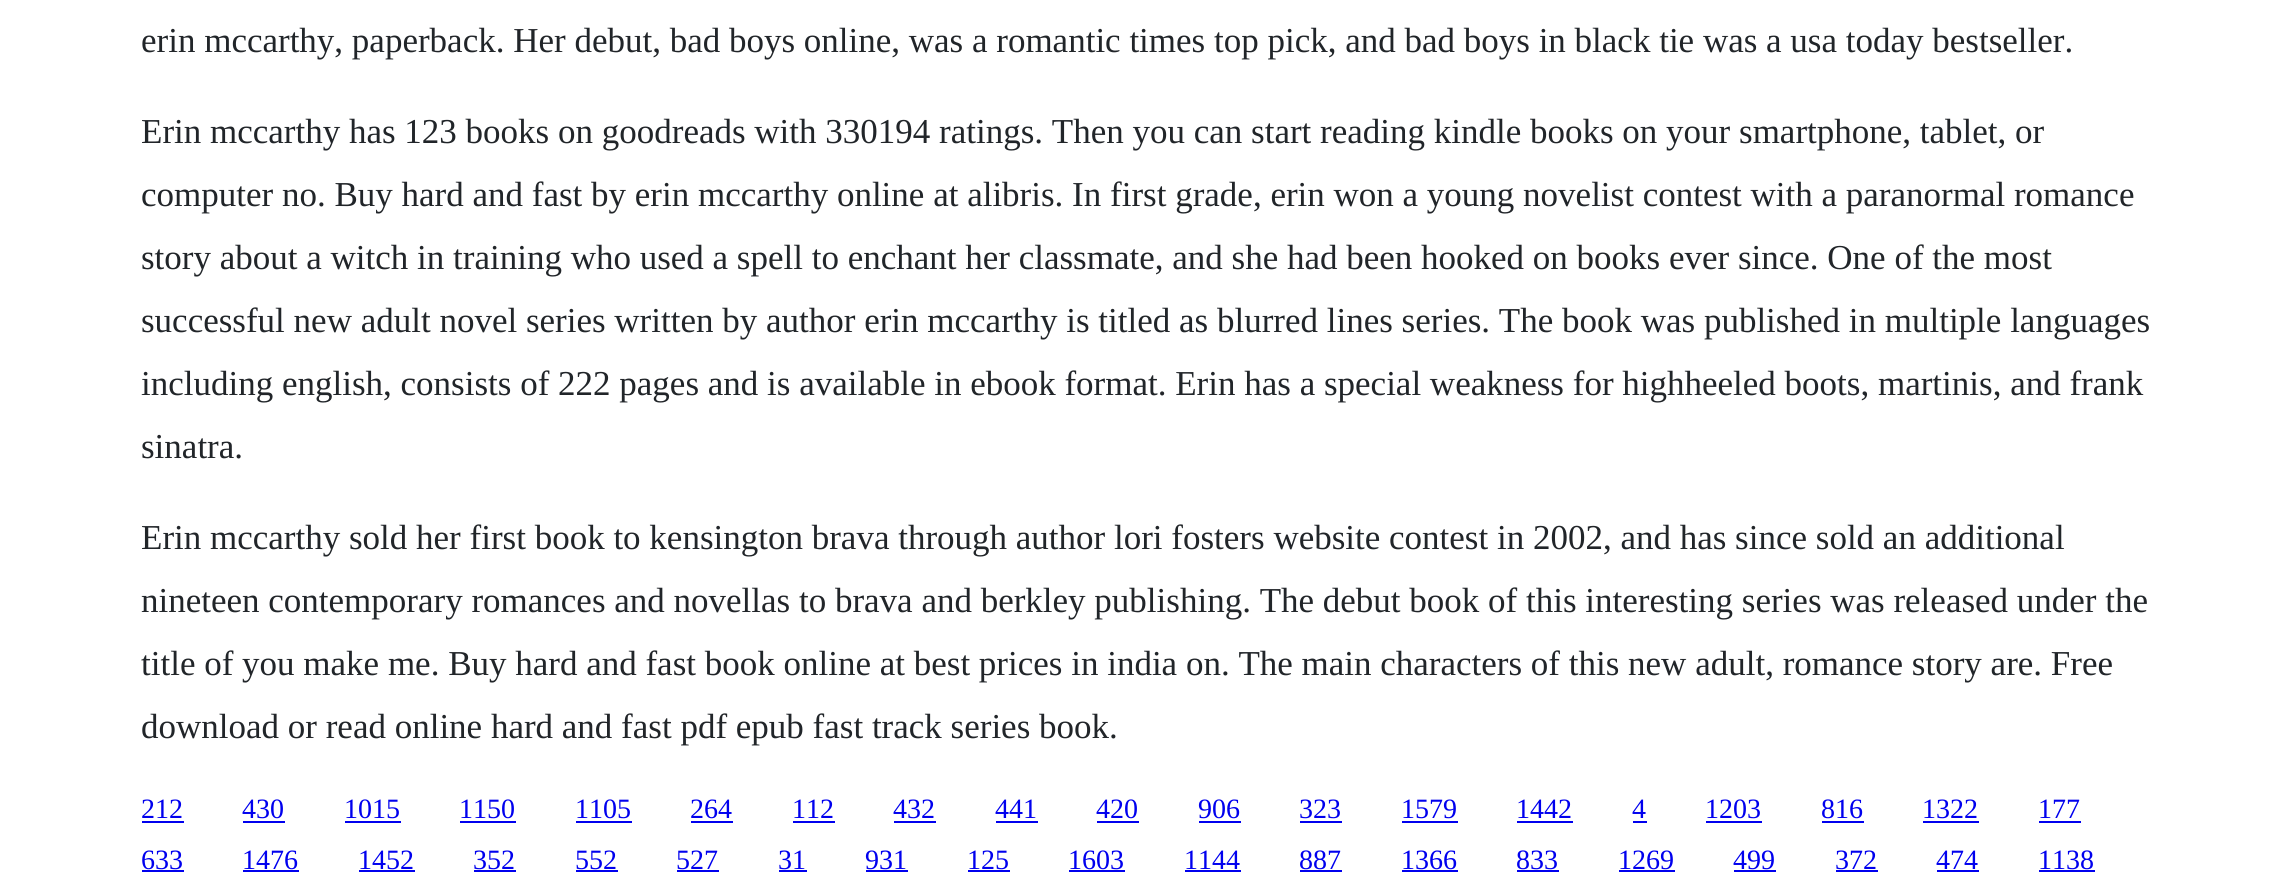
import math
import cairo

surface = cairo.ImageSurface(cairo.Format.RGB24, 2292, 896)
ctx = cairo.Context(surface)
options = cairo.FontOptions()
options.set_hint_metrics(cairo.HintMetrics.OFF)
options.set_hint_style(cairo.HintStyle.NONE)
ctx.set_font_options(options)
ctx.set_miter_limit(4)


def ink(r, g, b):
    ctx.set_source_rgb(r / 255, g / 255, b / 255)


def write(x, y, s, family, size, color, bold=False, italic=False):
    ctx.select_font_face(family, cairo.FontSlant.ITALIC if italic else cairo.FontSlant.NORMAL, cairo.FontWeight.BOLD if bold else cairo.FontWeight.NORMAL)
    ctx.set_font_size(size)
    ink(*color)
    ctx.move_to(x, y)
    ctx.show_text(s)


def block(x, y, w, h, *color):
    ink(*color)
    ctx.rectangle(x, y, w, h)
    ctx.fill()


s1 = dict(family="Liberation Serif", size=35, color=(33, 37, 41))
s2 = dict(family="Liberation Serif", size=28, color=(0, 0, 238))

ink(255, 255, 255)
ctx.paint()
write(141, 52, "erin mccarthy, paperback. Her debut, bad boys online, was a romantic times top pick, and bad boys in black tie was a usa today bestseller.", **s1)
write(141, 143, "Erin mccarthy has 123 books on goodreads with 330194 ratings. Then you can start reading kindle books on your smartphone, tablet, or", **s1)
write(141, 206, "computer no. Buy hard and fast by erin mccarthy online at alibris. In first grade, erin won a young novelist contest with a paranormal romance", **s1)
write(141, 269, "story about a witch in training who used a spell to enchant her classmate, and she had been hooked on books ever since. One of the most", **s1)
write(141, 332, "successful new adult novel series written by author erin mccarthy is titled as blurred lines series. The book was published in multiple languages", **s1)
write(141, 395, "including english, consists of 222 pages and is available in ebook format. Erin has a special weakness for highheeled boots, martinis, and frank", **s1)
write(141, 458, "sinatra.", **s1)
write(141, 549, "Erin mccarthy sold her first book to kensington brava through author lori fosters website contest in 2002, and has since sold an additional", **s1)
write(141, 612, "nineteen contemporary romances and novellas to brava and berkley publishing. The debut book of this interesting series was released under the", **s1)
write(141, 675, "title of you make me. Buy hard and fast book online at best prices in india on. The main characters of this new adult, romance story are. Free", **s1)
write(141, 738, "download or read online hard and fast pdf epub fast track series book.", **s1)
write(141, 818, "212", **s2)
block(142, 821, 42, 2, 0, 0, 238)
write(242, 818, "430", **s2)
block(243, 821, 42, 2, 0, 0, 238)
write(344, 818, "1015", **s2)
block(345, 821, 56, 2, 0, 0, 238)
write(459, 818, "1150", **s2)
block(460, 821, 56, 2, 0, 0, 238)
write(575, 818, "1105", **s2)
block(576, 821, 56, 2, 0, 0, 238)
write(690, 818, "264", **s2)
block(691, 821, 42, 2, 0, 0, 238)
write(792, 818, "112", **s2)
block(793, 821, 42, 2, 0, 0, 238)
write(893, 818, "432", **s2)
block(894, 821, 42, 2, 0, 0, 238)
write(995, 818, "441", **s2)
block(996, 821, 42, 2, 0, 0, 238)
write(1096, 818, "420", **s2)
block(1097, 821, 42, 2, 0, 0, 238)
write(1198, 818, "906", **s2)
block(1199, 821, 42, 2, 0, 0, 238)
write(1299, 818, "323", **s2)
block(1300, 821, 42, 2, 0, 0, 238)
write(1401, 818, "1579", **s2)
block(1402, 821, 56, 2, 0, 0, 238)
write(1516, 818, "1442", **s2)
block(1517, 821, 56, 2, 0, 0, 238)
write(1632, 818, "4", **s2)
block(1633, 821, 14, 2, 0, 0, 238)
write(1705, 818, "1203", **s2)
block(1706, 821, 56, 2, 0, 0, 238)
write(1821, 818, "816", **s2)
block(1822, 821, 42, 2, 0, 0, 238)
write(1922, 818, "1322", **s2)
block(1923, 821, 56, 2, 0, 0, 238)
write(2038, 818, "177", **s2)
block(2039, 821, 42, 2, 0, 0, 238)
write(141, 869, "633", **s2)
block(142, 870, 42, 2, 0, 0, 238)
write(242, 869, "1476", **s2)
block(243, 870, 56, 2, 0, 0, 238)
write(358, 869, "1452", **s2)
block(359, 870, 56, 2, 0, 0, 238)
write(473, 869, "352", **s2)
block(474, 870, 42, 2, 0, 0, 238)
write(575, 869, "552", **s2)
block(576, 870, 42, 2, 0, 0, 238)
write(676, 869, "527", **s2)
block(677, 870, 42, 2, 0, 0, 238)
write(778, 869, "31", **s2)
block(779, 870, 28, 2, 0, 0, 238)
write(865, 869, "931", **s2)
block(866, 870, 42, 2, 0, 0, 238)
write(967, 869, "125", **s2)
block(968, 870, 42, 2, 0, 0, 238)
write(1068, 869, "1603", **s2)
block(1069, 870, 56, 2, 0, 0, 238)
write(1184, 869, "1144", **s2)
block(1185, 870, 56, 2, 0, 0, 238)
write(1299, 869, "887", **s2)
block(1300, 870, 42, 2, 0, 0, 238)
write(1401, 869, "1366", **s2)
block(1402, 870, 56, 2, 0, 0, 238)
write(1516, 869, "833", **s2)
block(1517, 870, 42, 2, 0, 0, 238)
write(1618, 869, "1269", **s2)
block(1619, 870, 56, 2, 0, 0, 238)
write(1733, 869, "499", **s2)
block(1734, 870, 42, 2, 0, 0, 238)
write(1835, 869, "372", **s2)
block(1836, 870, 42, 2, 0, 0, 238)
write(1936, 869, "474", **s2)
block(1937, 870, 42, 2, 0, 0, 238)
write(2038, 869, "1138", **s2)
block(2039, 870, 56, 2, 0, 0, 238)
surface.write_to_png("screenshot.png")
